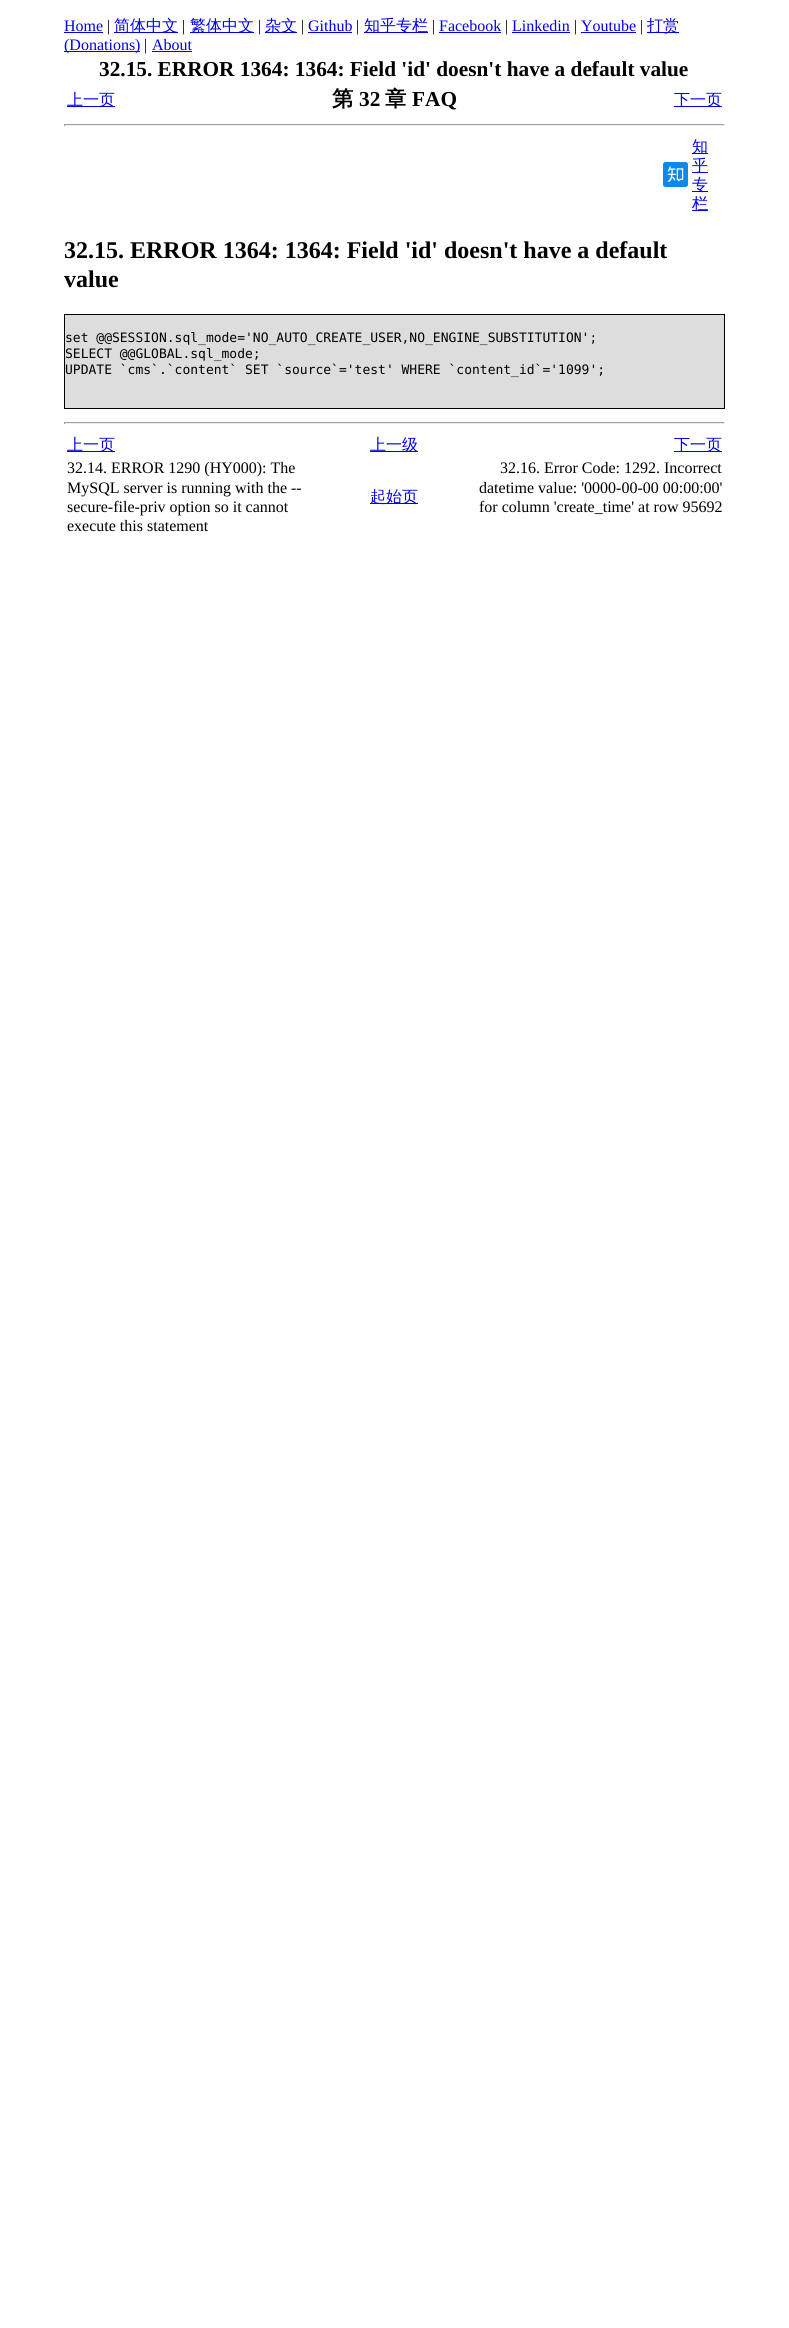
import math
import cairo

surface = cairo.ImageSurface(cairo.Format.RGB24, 789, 2328)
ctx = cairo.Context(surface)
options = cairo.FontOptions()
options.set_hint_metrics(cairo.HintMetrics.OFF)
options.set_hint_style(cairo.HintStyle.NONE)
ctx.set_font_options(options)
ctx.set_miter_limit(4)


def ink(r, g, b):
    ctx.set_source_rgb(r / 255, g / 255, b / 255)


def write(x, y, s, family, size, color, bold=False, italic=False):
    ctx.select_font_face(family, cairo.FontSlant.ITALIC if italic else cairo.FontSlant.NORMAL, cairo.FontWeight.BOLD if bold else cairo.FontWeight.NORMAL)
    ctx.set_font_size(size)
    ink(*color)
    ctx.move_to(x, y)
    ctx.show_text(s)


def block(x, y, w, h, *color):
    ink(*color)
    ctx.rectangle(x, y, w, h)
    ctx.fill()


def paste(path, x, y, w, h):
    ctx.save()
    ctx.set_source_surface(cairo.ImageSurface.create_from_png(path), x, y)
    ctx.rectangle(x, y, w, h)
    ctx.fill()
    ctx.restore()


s1 = dict(family="Liberation Serif", size=16, color=(0, 0, 238))
s2 = dict(family="Liberation Serif", size=16, color=(0, 0, 0))
s3 = dict(family="WenQuanYi Zen Hei Medium", size=16, color=(0, 0, 238))
s4 = dict(family="Liberation Serif", size=21.3, color=(0, 0, 0), bold=True)
s5 = dict(family="WenQuanYi Zen Hei", size=21.3, color=(0, 0, 0), bold=True)
s6 = dict(family="Liberation Serif", size=24, color=(0, 0, 0), bold=True)
s7 = dict(family="DejaVu Sans Mono", size=13, color=(0, 0, 0))

ink(255, 255, 255)
ctx.paint()
write(64, 31, "Home", **s1)
block(64, 32, 39, 1, 0, 0, 238)
write(107, 31, "|", **s2)
block(114, 32, 64, 1, 0, 0, 238)
write(114, 31, "简体中文", **s3)
write(182, 31, "|", **s2)
block(190, 32, 64, 1, 0, 0, 238)
write(190, 31, "繁体中文", **s3)
write(258, 31, "|", **s2)
block(265, 32, 32, 1, 0, 0, 238)
write(265, 31, "杂文", **s3)
write(301, 31, "|", **s2)
write(308, 31, "Github", **s1)
block(308, 32, 44, 1, 0, 0, 238)
write(356, 31, "|", **s2)
block(364, 32, 64, 1, 0, 0, 238)
write(364, 31, "知乎专栏", **s3)
write(432, 31, "|", **s2)
write(439, 31, "Facebook", **s1)
block(439, 32, 62, 1, 0, 0, 238)
write(505, 31, "|", **s2)
write(512, 31, "Linkedin", **s1)
block(512, 32, 58, 1, 0, 0, 238)
write(574, 31, "|", **s2)
write(581, 31, "Youtube", **s1)
block(581, 32, 55, 1, 0, 0, 238)
write(640, 31, "|", **s2)
block(647, 32, 32, 1, 0, 0, 238)
write(647, 31, "打赏", **s3)
block(64, 51, 76, 1, 0, 0, 238)
write(64, 50, "(Donations)", **s1)
write(144, 50, "|", **s2)
write(152, 50, "About", **s1)
block(152, 51, 40, 1, 0, 0, 238)
write(99, 76, "32.15. ERROR 1364: 1364: Field 'id' doesn't have a default value", **s4)
block(67, 106, 48, 1, 0, 0, 238)
write(67, 105, "上一页", **s3)
write(332, 106, "第", **s5)
write(359, 106, "32", **s4)
write(385, 106, "章", **s5)
write(412, 106, "FAQ", **s4)
block(674, 106, 48, 1, 0, 0, 238)
write(674, 105, "下一页", **s3)
block(64, 124, 661, 1, 159, 159, 159)
block(724, 124, 1, 2, 238, 238, 238)
block(64, 125, 661, 1, 238, 238, 238)
block(64, 124, 1, 2, 159, 159, 159)
paste("pic1.png", 663, 162, 25, 25)
block(692, 153, 16, 1, 0, 0, 238)
write(692, 152, "知", **s3)
block(692, 172, 16, 1, 0, 0, 238)
write(692, 171, "乎", **s3)
block(692, 191, 16, 1, 0, 0, 238)
write(692, 190, "专", **s3)
block(692, 210, 16, 1, 0, 0, 238)
write(692, 209, "栏", **s3)
write(64, 258, "32.15. ERROR 1364: 1364: Field 'id' doesn't have a default", **s6)
write(64, 287, "value", **s6)
ink(221, 221, 221)
ctx.rectangle(64.5, 314.5, 660, 94)
ctx.fill_preserve()
ink(0, 0, 0)
ctx.set_line_width(1)
ctx.stroke()
write(65, 342, "set @@SESSION.sql_mode='NO_AUTO_CREATE_USER,NO_ENGINE_SUBSTITUTION';", **s7)
write(65, 358, "SELECT @@GLOBAL.sql_mode;", **s7)
write(65, 374, "UPDATE `cms`.`content` SET `source`='test' WHERE `content_id`='1099';", **s7)
block(64, 422, 661, 1, 159, 159, 159)
block(724, 422, 1, 2, 238, 238, 238)
block(64, 423, 661, 1, 238, 238, 238)
block(64, 422, 1, 2, 159, 159, 159)
block(67, 451, 48, 1, 0, 0, 238)
write(67, 450, "上一页", **s3)
block(370, 451, 48, 1, 0, 0, 238)
write(370, 450, "上一级", **s3)
block(674, 451, 48, 1, 0, 0, 238)
write(674, 450, "下一页", **s3)
write(67, 473, "32.14. ERROR 1290 (HY000): The", **s2)
write(67, 493, "MySQL server is running with the --", **s2)
write(67, 512, "secure-file-priv option so it cannot", **s2)
write(67, 531, "execute this statement", **s2)
block(370, 503, 48, 1, 0, 0, 238)
write(370, 502, "起始页", **s3)
write(500, 473, "32.16. Error Code: 1292. Incorrect", **s2)
write(479, 493, "datetime value: '0000-00-00 00:00:00'", **s2)
write(479, 512, "for column 'create_time' at row 95692", **s2)
surface.write_to_png("screenshot.png")
